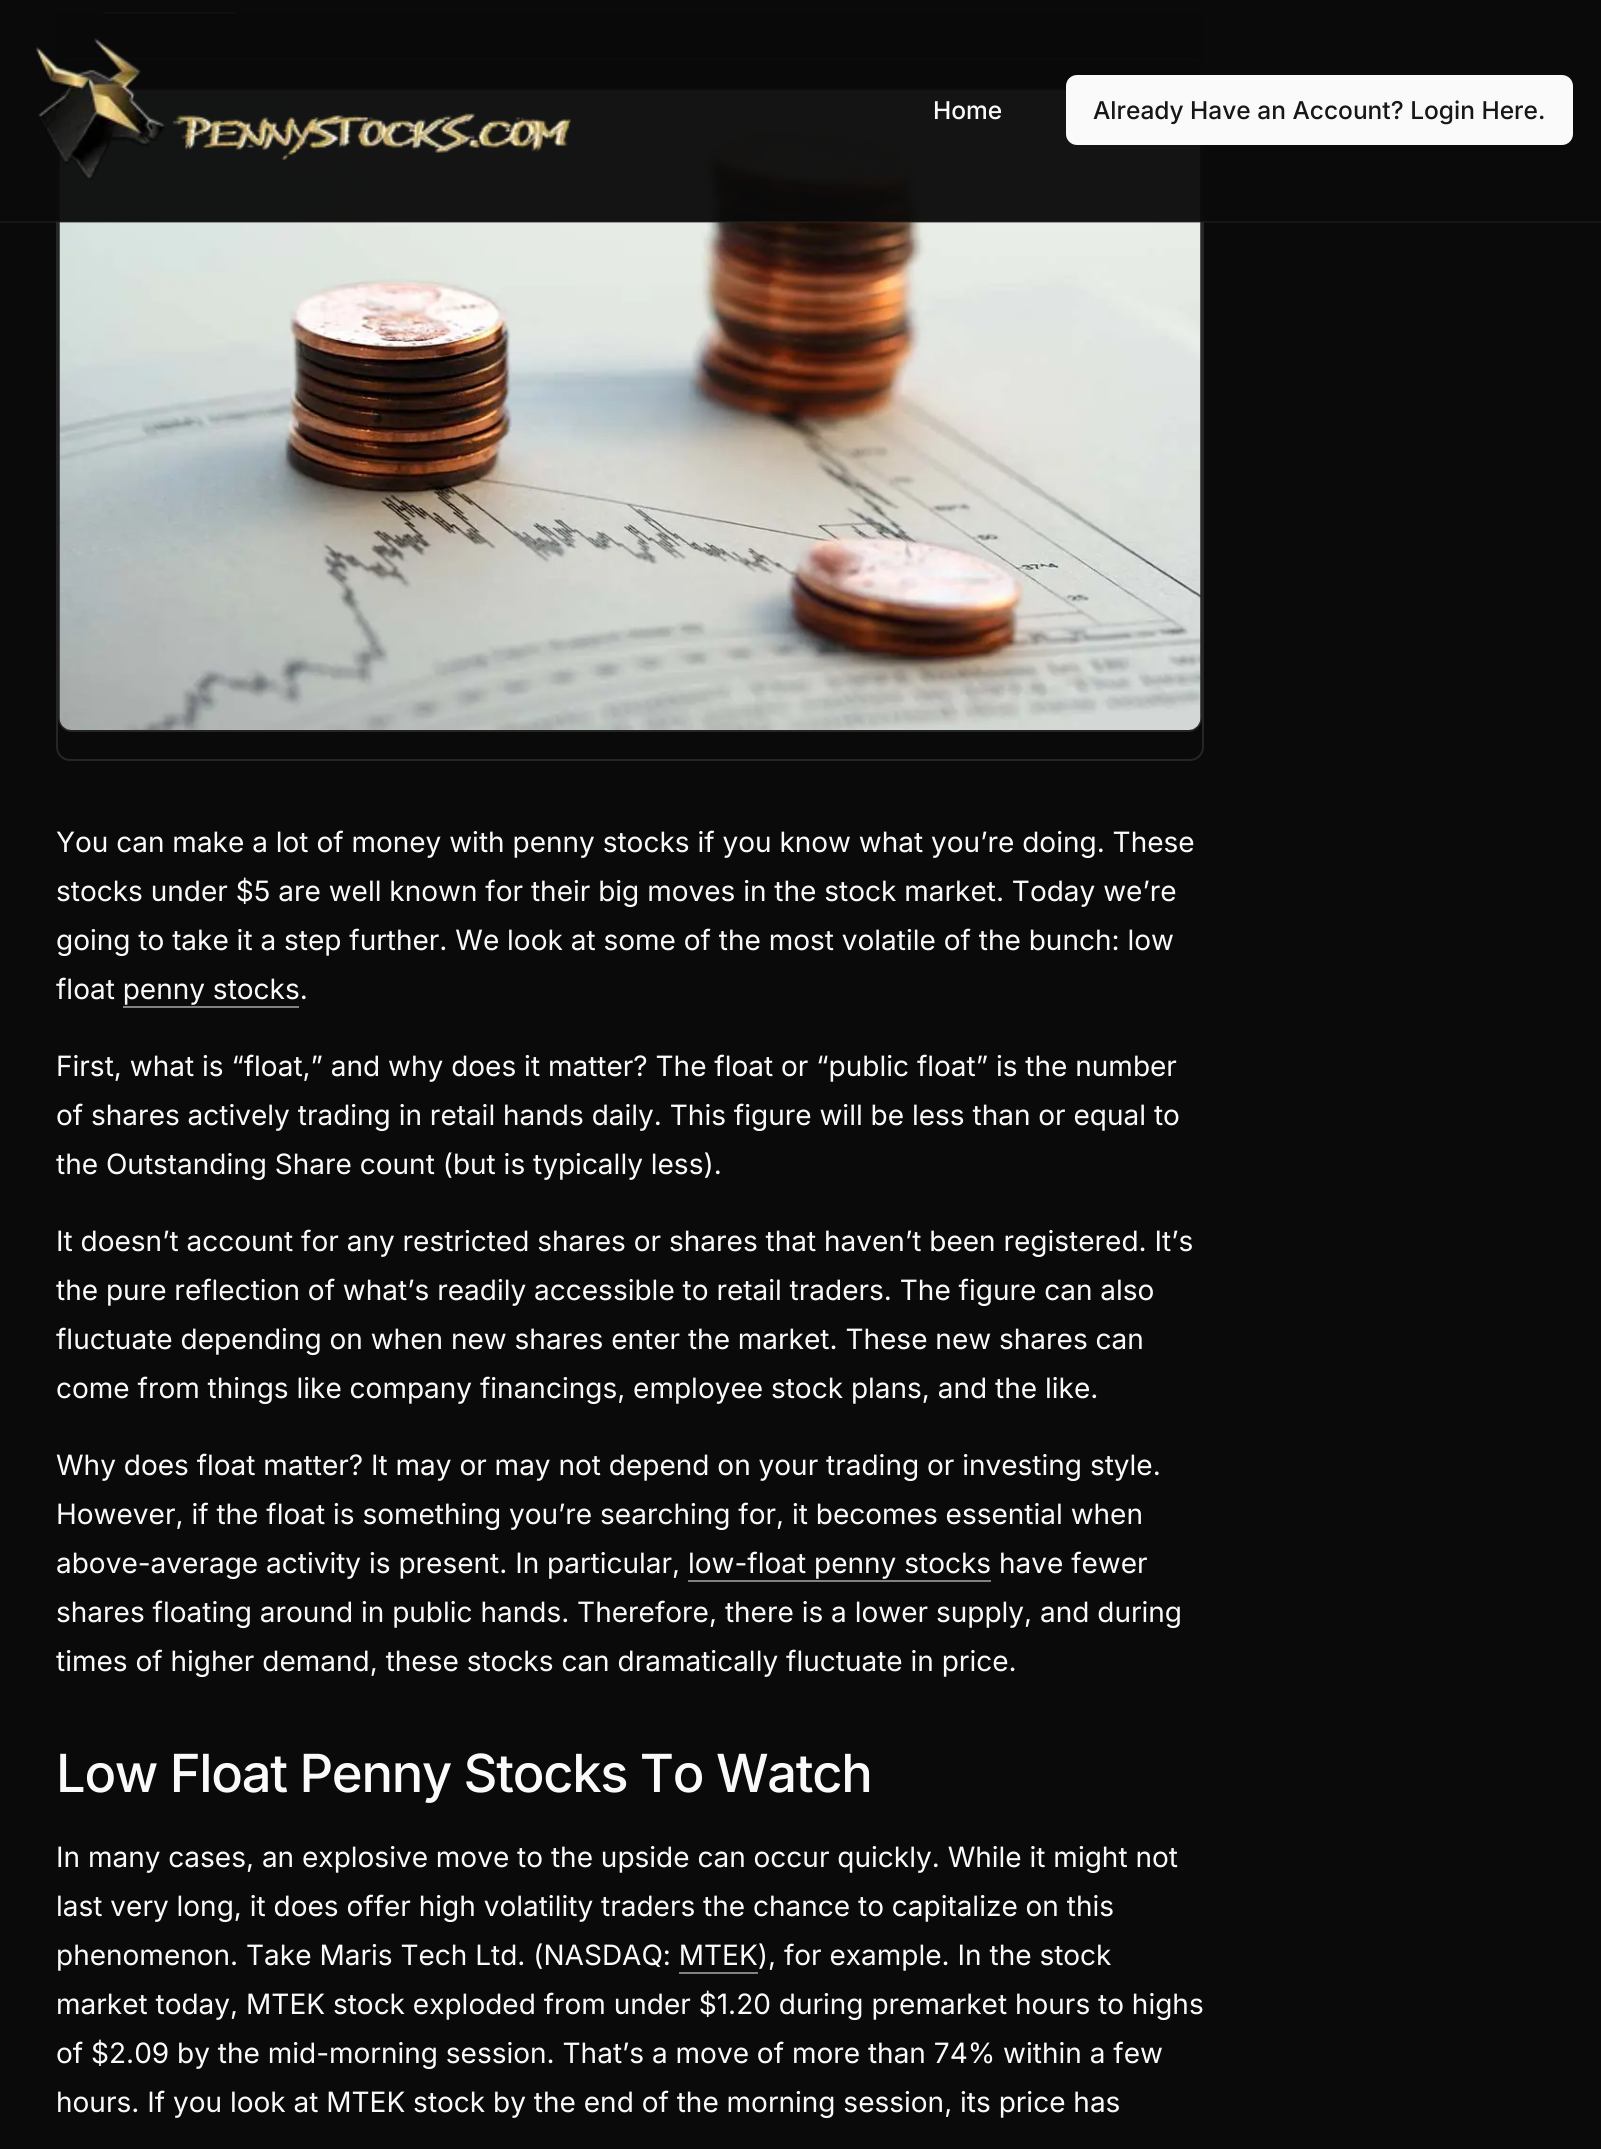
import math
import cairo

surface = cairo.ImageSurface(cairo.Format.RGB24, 1601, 2149)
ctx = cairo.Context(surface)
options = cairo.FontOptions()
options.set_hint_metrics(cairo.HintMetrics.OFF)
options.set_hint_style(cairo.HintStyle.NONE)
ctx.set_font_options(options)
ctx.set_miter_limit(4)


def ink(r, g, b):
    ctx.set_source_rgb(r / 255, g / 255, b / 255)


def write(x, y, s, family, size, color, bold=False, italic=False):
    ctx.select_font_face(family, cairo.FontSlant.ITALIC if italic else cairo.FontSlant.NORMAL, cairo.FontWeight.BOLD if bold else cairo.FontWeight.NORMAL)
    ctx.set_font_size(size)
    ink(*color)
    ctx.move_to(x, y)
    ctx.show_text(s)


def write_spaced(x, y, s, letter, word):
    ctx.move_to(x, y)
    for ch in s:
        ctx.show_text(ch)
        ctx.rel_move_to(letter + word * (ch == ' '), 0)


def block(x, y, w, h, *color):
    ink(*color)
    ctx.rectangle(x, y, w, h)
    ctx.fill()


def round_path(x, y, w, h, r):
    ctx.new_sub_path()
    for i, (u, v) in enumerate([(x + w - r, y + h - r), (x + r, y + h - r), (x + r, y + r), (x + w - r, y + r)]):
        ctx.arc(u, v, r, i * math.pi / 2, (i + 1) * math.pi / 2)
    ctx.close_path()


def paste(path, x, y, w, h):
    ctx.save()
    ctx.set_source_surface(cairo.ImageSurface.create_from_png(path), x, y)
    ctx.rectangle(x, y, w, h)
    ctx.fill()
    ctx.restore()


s1 = dict(family="Inter Medium", size=24.5, color=(250, 250, 250))
s2 = dict(family="Inter Medium", size=24.5, color=(23, 23, 23))
s3 = dict(family="Inter", size=28, color=(250, 250, 250))

ink(10, 10, 10)
ctx.paint()
block(103, 12, 132, 2, 130, 130, 130)
round_path(57, 59, 1146, 701, 13)
ink(38, 38, 38)
ctx.stroke()
round_path(59, 89, 1142, 642, 13)
ctx.stroke()
paste("pic2.png", 59, 89, 1142, 641)
ctx.set_source_rgba(0.039, 0.039, 0.039, 0.95)
ctx.rectangle(56, 12, 1148, 210)
ctx.fill()
ctx.set_source_rgba(0.149, 0.149, 0.149, 0.4)
ctx.rectangle(0, 221, 1601, 2)
ctx.fill()
paste("pic1.png", 35, 38, 536, 142)
write(933, 119, "Home", **s1)
round_path(1066, 75, 507, 70, 11)
ctx.fill()
write(1093, 119, "Already Have an Account? Login Here.", **s2)
write(56, 852, "You can make a lot of money with penny stocks if you know what you’re doing. These", **s3)
write(56, 901, "stocks under $5 are well known for their big moves in the stock market. Today we’re", **s3)
write(56, 950, "going to take it a step further. We look at some of the most volatile of the bunch: low", **s3)
write(56, 999, "float penny stocks.", **s3)
block(123, 1006, 176, 2, 130, 130, 130)
write(56, 1076, "First, what is “float,” and why does it matter? The float or “public float” is the number", **s3)
write(56, 1125, "of shares actively trading in retail hands daily. This figure will be less than or equal to", **s3)
write(56, 1174, "the Outstanding Share count (but is typically less).", **s3)
write(56, 1251, "It doesn’t account for any restricted shares or shares that haven’t been registered. It’s", **s3)
write(56, 1300, "the pure reflection of what’s readily accessible to retail traders. The figure can also", **s3)
write(56, 1349, "fluctuate depending on when new shares enter the market. These new shares can", **s3)
write(56, 1398, "come from things like company financings, employee stock plans, and the like.", **s3)
write(56, 1475, "Why does float matter? It may or may not depend on your trading or investing style.", **s3)
write(56, 1524, "However, if the float is something you’re searching for, it becomes essential when", **s3)
write(56, 1573, "above-average activity is present. In particular, low-float penny stocks have fewer", **s3)
block(688, 1580, 303, 2, 130, 130, 130)
write(56, 1622, "shares floating around in public hands. Therefore, there is a lower supply, and during", **s3)
write(56, 1671, "times of higher demand, these stocks can dramatically fluctuate in price.", **s3)
ctx.select_font_face("Inter Medium")
ctx.set_font_size(52.5)
write_spaced(56, 1792, "Low Float Penny Stocks To Watch", -1.3, 0)
write(56, 1867, "In many cases, an explosive move to the upside can occur quickly. While it might not", **s3)
write(56, 1916, "last very long, it does offer high volatility traders the chance to capitalize on this", **s3)
write(56, 1965, "phenomenon. Take Maris Tech Ltd. (NASDAQ: MTEK), for example. In the stock", **s3)
block(679, 1972, 79, 2, 130, 130, 130)
write(56, 2014, "market today, MTEK stock exploded from under $1.20 during premarket hours to highs", **s3)
write(56, 2063, "of $2.09 by the mid-morning session. That’s a move of more than 74% within a few", **s3)
write(56, 2112, "hours. If you look at MTEK stock by the end of the morning session, its price has", **s3)
surface.write_to_png("screenshot.png")
